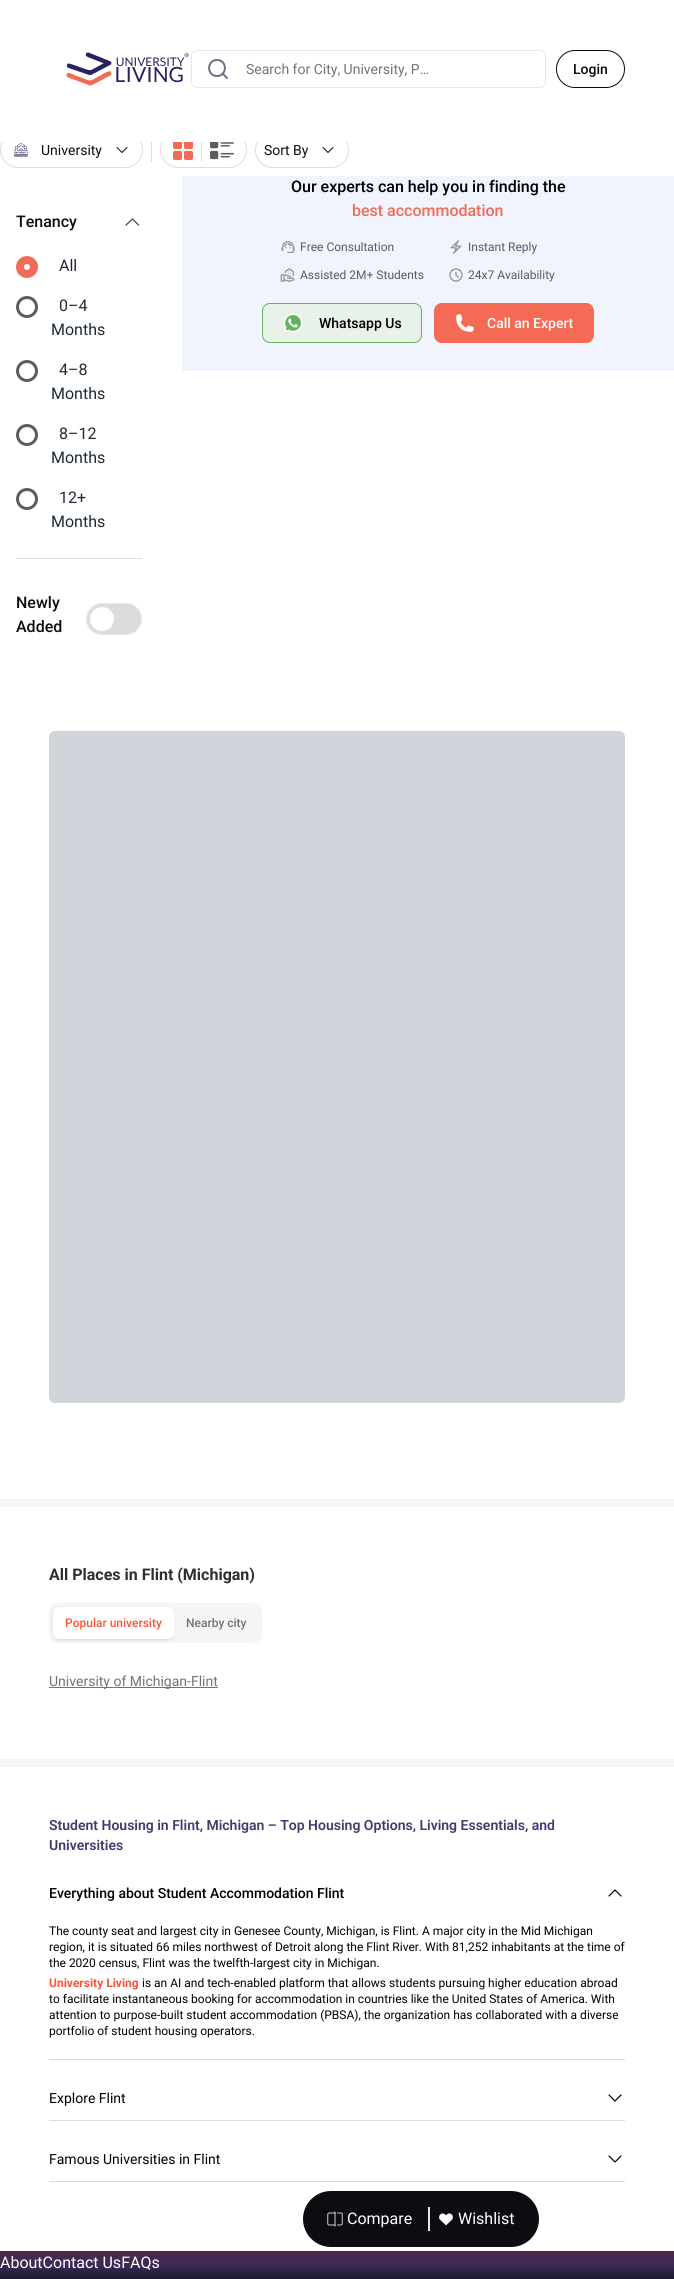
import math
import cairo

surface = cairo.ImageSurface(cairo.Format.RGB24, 674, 2279)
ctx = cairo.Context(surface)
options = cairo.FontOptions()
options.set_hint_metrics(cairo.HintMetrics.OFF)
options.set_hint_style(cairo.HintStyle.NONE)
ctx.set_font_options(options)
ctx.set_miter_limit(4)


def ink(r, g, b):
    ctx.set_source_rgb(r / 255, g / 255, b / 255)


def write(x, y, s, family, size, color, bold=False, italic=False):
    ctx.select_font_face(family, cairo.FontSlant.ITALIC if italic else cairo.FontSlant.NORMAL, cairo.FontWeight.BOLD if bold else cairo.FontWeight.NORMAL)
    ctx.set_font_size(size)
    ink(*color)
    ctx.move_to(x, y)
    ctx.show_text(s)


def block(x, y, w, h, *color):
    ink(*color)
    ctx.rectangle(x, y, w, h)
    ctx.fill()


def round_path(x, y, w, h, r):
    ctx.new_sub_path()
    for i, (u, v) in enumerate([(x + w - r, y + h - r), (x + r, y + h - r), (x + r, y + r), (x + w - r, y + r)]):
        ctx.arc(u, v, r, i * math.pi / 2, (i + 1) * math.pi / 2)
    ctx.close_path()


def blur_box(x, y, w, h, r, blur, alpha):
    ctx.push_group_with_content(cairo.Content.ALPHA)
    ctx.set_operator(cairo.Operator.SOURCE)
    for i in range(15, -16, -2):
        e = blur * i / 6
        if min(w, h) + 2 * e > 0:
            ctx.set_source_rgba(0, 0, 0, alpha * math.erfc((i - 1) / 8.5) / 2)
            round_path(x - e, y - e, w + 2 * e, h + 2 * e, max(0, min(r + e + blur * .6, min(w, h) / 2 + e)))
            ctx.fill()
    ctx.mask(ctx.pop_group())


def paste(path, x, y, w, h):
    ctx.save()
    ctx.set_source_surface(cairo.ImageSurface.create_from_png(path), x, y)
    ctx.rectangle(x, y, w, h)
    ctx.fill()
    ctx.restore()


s1 = dict(family="Roboto", size=14, color=(115, 115, 115))
s2 = dict(family="Roboto Medium", size=14, color=(10, 10, 10))
s3 = dict(family="Roboto", size=14, color=(13, 12, 16))
s4 = dict(family="Roboto Medium", size=16, color=(13, 12, 16))
s5 = dict(family="Roboto", size=16, color=(31, 41, 55))
s6 = dict(family="Roboto Medium", size=16, color=(0, 0, 0))
s7 = dict(family="Roboto Medium", size=16, color=(241, 108, 86))
s8 = dict(family="Roboto", size=12, color=(92, 91, 95))
s9 = dict(family="Roboto Medium", size=14, color=(0, 0, 0))
s10 = dict(family="Roboto Medium", size=14, color=(255, 255, 255))
s11 = dict(family="Roboto", size=16, color=(255, 255, 255))
s12 = dict(family="Roboto", size=16, color=(47, 45, 46), bold=True)
s13 = dict(family="Roboto Medium", size=12, color=(255, 82, 51))
s14 = dict(family="Roboto Medium", size=12, color=(115, 115, 115))
s15 = dict(family="Roboto SemiBold", size=14, color=(60, 60, 113))
s16 = dict(family="Roboto", size=12, color=(0, 0, 0))
s17 = dict(family="Roboto", size=12, color=(255, 82, 51), bold=True)
s18 = dict(family="Roboto", size=14, color=(0, 0, 0))

ink(255, 255, 255)
ctx.paint()
round_path(0.5, 132.5, 142, 35, 17.5)
ink(220, 220, 220)
ctx.set_line_width(1)
ctx.stroke()
block(151, 138, 1, 24, 220, 220, 220)
round_path(160.5, 132.5, 86, 35, 17.5)
ctx.stroke()
block(201, 138, 1, 24, 220, 220, 220)
round_path(255.5, 132.5, 93, 35, 17.5)
ctx.stroke()
block(2, 132, 345, 10, 255, 255, 255)
paste("pic1.png", 66, 52, 123, 34)
round_path(191.5, 50.5, 354, 37, 5.5)
ink(229, 231, 235)
ctx.stroke()
ctx.new_path()
ctx.move_to(217, 76)
ctx.curve_to(227.5, 76, 227.5, 60, 217, 60)
ctx.curve_to(206.5, 60, 206.5, 76, 217, 76)
ctx.close_path()
ctx.move_to(227, 78)
ctx.line_to(222.5, 73.5)
ink(107, 114, 128)
ctx.set_line_width(2)
ctx.set_line_cap(cairo.LineCap.ROUND)
ctx.set_line_join(cairo.LineJoin.ROUND)
ctx.stroke()
write(246, 74, "Search for City, University, P…", **s1)
round_path(556.5, 50.5, 68, 37, 18.5)
ink(10, 10, 10)
ctx.set_line_width(1)
ctx.set_line_cap(cairo.LineCap.BUTT)
ctx.set_line_join(cairo.LineJoin.MITER)
ctx.stroke()
write(573, 74, "Login", **s2)
paste("pic2.png", 14, 143, 14, 14)
write(41, 155, "University", **s3)
ctx.new_path()
ctx.move_to(127, 147.5)
ctx.line_to(122, 152.5)
ctx.line_to(117, 147.5)
ctx.set_line_cap(cairo.LineCap.ROUND)
ctx.set_line_join(cairo.LineJoin.ROUND)
ctx.stroke()
paste("pic3.png", 173, 142, 20, 18)
paste("pic4.png", 210, 142, 24, 18)
write(264, 155, "Sort By", **s3)
ctx.new_path()
ctx.move_to(333, 147.5)
ctx.line_to(328, 152.5)
ctx.line_to(323, 147.5)
ctx.stroke()
write(16, 227, "Tenancy", **s4)
ctx.new_path()
ctx.move_to(126, 225)
ctx.line_to(132.5, 219)
ctx.line_to(138.5, 225)
ink(55, 65, 81)
ctx.set_line_width(1.2)
ctx.stroke()
ctx.arc(27, 267, 7, 0, 2 * math.pi)
ink(241, 108, 86)
ctx.set_line_width(8)
ctx.set_line_cap(cairo.LineCap.BUTT)
ctx.set_line_join(cairo.LineJoin.MITER)
ctx.stroke()
write(59, 271, "All", **s5)
ctx.new_path()
ctx.arc(27, 307, 9.5, 0, 2 * math.pi)
ink(92, 91, 95)
ctx.set_line_width(3)
ctx.stroke()
write(59, 311, "0–4", **s5)
write(51, 335, "Months", **s5)
ctx.new_path()
ctx.arc(27, 371, 9.5, 0, 2 * math.pi)
ink(92, 91, 95)
ctx.stroke()
write(59, 375, "4–8", **s5)
write(51, 399, "Months", **s5)
ctx.new_path()
ctx.arc(27, 435, 9.5, 0, 2 * math.pi)
ink(92, 91, 95)
ctx.stroke()
write(59, 439, "8–12", **s5)
write(51, 463, "Months", **s5)
ctx.new_path()
ctx.arc(27, 499, 9.5, 0, 2 * math.pi)
ink(92, 91, 95)
ctx.stroke()
write(59, 503, "12+", **s5)
write(51, 527, "Months", **s5)
block(16, 558, 126, 1, 220, 220, 220)
write(16, 608, "Newly", **s4)
write(16, 632, "Added", **s4)
ink(220, 220, 220)
round_path(86.5, 603.5, 55, 31, 15.5)
ctx.fill_preserve()
ink(229, 231, 235)
ctx.set_line_width(1)
ctx.stroke()
ink(255, 255, 255)
ctx.arc(102, 619, 12, 0, 2 * math.pi)
ctx.fill()
block(182, 176, 492, 195, 241, 243, 253)
write(291, 192, "Our experts can help you in finding the", **s6)
write(352, 216, "best accommodation", **s7)
paste("pic5.png", 281, 241, 14, 12)
write(300, 251, "Free Consultation", **s8)
paste("pic6.png", 450, 240, 12, 14)
write(468, 251, "Instant Reply", **s8)
paste("pic7.png", 280, 268, 15, 14)
write(300, 279, "Assisted 2M+ Students", **s8)
paste("pic8.png", 449, 268, 14, 14)
write(468, 279, "24x7 Availability", **s8)
ink(233, 242, 232)
round_path(262.5, 303.5, 159, 39, 7.5)
ctx.fill_preserve()
ink(100, 177, 97)
ctx.stroke()
paste("pic9.png", 283, 313, 20, 20)
write(319, 328, "Whatsapp Us", **s9)
ink(245, 106, 84)
round_path(434.5, 303.5, 159, 39, 7.5)
ctx.fill_preserve()
ctx.stroke()
paste("pic10.png", 456, 314, 18, 18)
write(487, 328, "Call an Expert", **s10)
ink(13, 12, 16)
round_path(303, 2191, 236, 56, 28)
ctx.fill()
paste("pic11.png", 327, 2211, 16, 16)
write(347, 2224, "Compare", **s11)
block(428, 2207, 2, 24, 229, 231, 235)
paste("pic12.png", 439, 2213, 14, 13)
write(458, 2224, "Wishlist", **s11)
ink(209, 213, 219)
round_path(49, 731, 576, 672, 6)
ctx.fill()
block(0, 1499, 674, 8, 245, 245, 245)
block(0, 1759, 674, 8, 245, 245, 245)
write(49, 1580, "All Places in Flint (Michigan)", **s12)
ink(245, 245, 245)
round_path(49, 1603, 213, 40, 8)
ctx.fill()
ink(0, 0, 0)
blur_box(54, 1609, 119, 30, 5, 1, 0.1)
blur_box(53, 1608, 121, 32, 6, 1.5, 0.1)
ink(255, 255, 255)
round_path(53, 1607, 121, 32, 6)
ctx.fill()
write(65, 1627, "Popular university", **s13)
block(174, 1610, 2, 28, 245, 245, 245)
write(186, 1627, "Nearby city", **s14)
block(49, 1687, 169, 1, 115, 115, 115)
write(49, 1686, "University of Michigan-Flint", **s1)
write(49, 1830, "Student Housing in Flint, Michigan – Top Housing Options, Living Essentials, and", **s15)
write(49, 1850, "Universities", **s15)
block(49, 2059, 576, 1, 220, 220, 220)
write(49, 1898, "Everything about Student Accommodation Flint", **s9)
ctx.new_path()
ctx.move_to(609, 1896)
ctx.line_to(615, 1890)
ctx.line_to(621, 1896)
ctx.set_line_width(1.2)
ctx.set_line_cap(cairo.LineCap.ROUND)
ctx.set_line_join(cairo.LineJoin.ROUND)
ctx.stroke()
write(49, 1935, "The county seat and largest city in Genesee County, Michigan, is Flint. A major city in the Mid Michigan", **s16)
write(49, 1951, "region, it is situated 66 miles northwest of Detroit along the Flint River. With 81,252 inhabitants at the time of", **s16)
write(49, 1967, "the 2020 census, Flint was the twelfth-largest city in Michigan.", **s16)
write(49, 1987, "University Living", **s17)
write(142, 1987, "is an AI and tech-enabled platform that allows students pursuing higher education abroad", **s16)
write(49, 2003, "to facilitate instantaneous booking for accommodation in countries like the United States of America. With", **s16)
write(49, 2019, "attention to purpose-built student accommodation (PBSA), the organization has collaborated with a diverse", **s16)
write(49, 2035, "portfolio of student housing operators.", **s16)
block(49, 2120, 576, 1, 220, 220, 220)
write(49, 2103, "Explore Flint", **s18)
ctx.new_path()
ctx.move_to(621, 2095)
ctx.line_to(615, 2101)
ctx.line_to(609, 2095)
ctx.stroke()
block(49, 2181, 576, 1, 220, 220, 220)
write(49, 2164, "Famous Universities in Flint", **s18)
ctx.new_path()
ctx.move_to(621, 2156)
ctx.line_to(615, 2162)
ctx.line_to(609, 2156)
ctx.stroke()
gradient = cairo.LinearGradient(337, 2251, 337, 2279)
gradient.add_color_stop_rgba(0, 0.31, 0.153, 0.286, 1)
gradient.add_color_stop_rgba(0.5, 0.231, 0.165, 0.337, 1)
gradient.add_color_stop_rgba(1, 0.106, 0.09, 0.188, 1)
ctx.set_source(gradient)
ctx.rectangle(0, 2251, 674, 28)
ctx.fill()
write(0, 2268, "AboutContact UsFAQs", **s11)
surface.write_to_png("screenshot.png")
